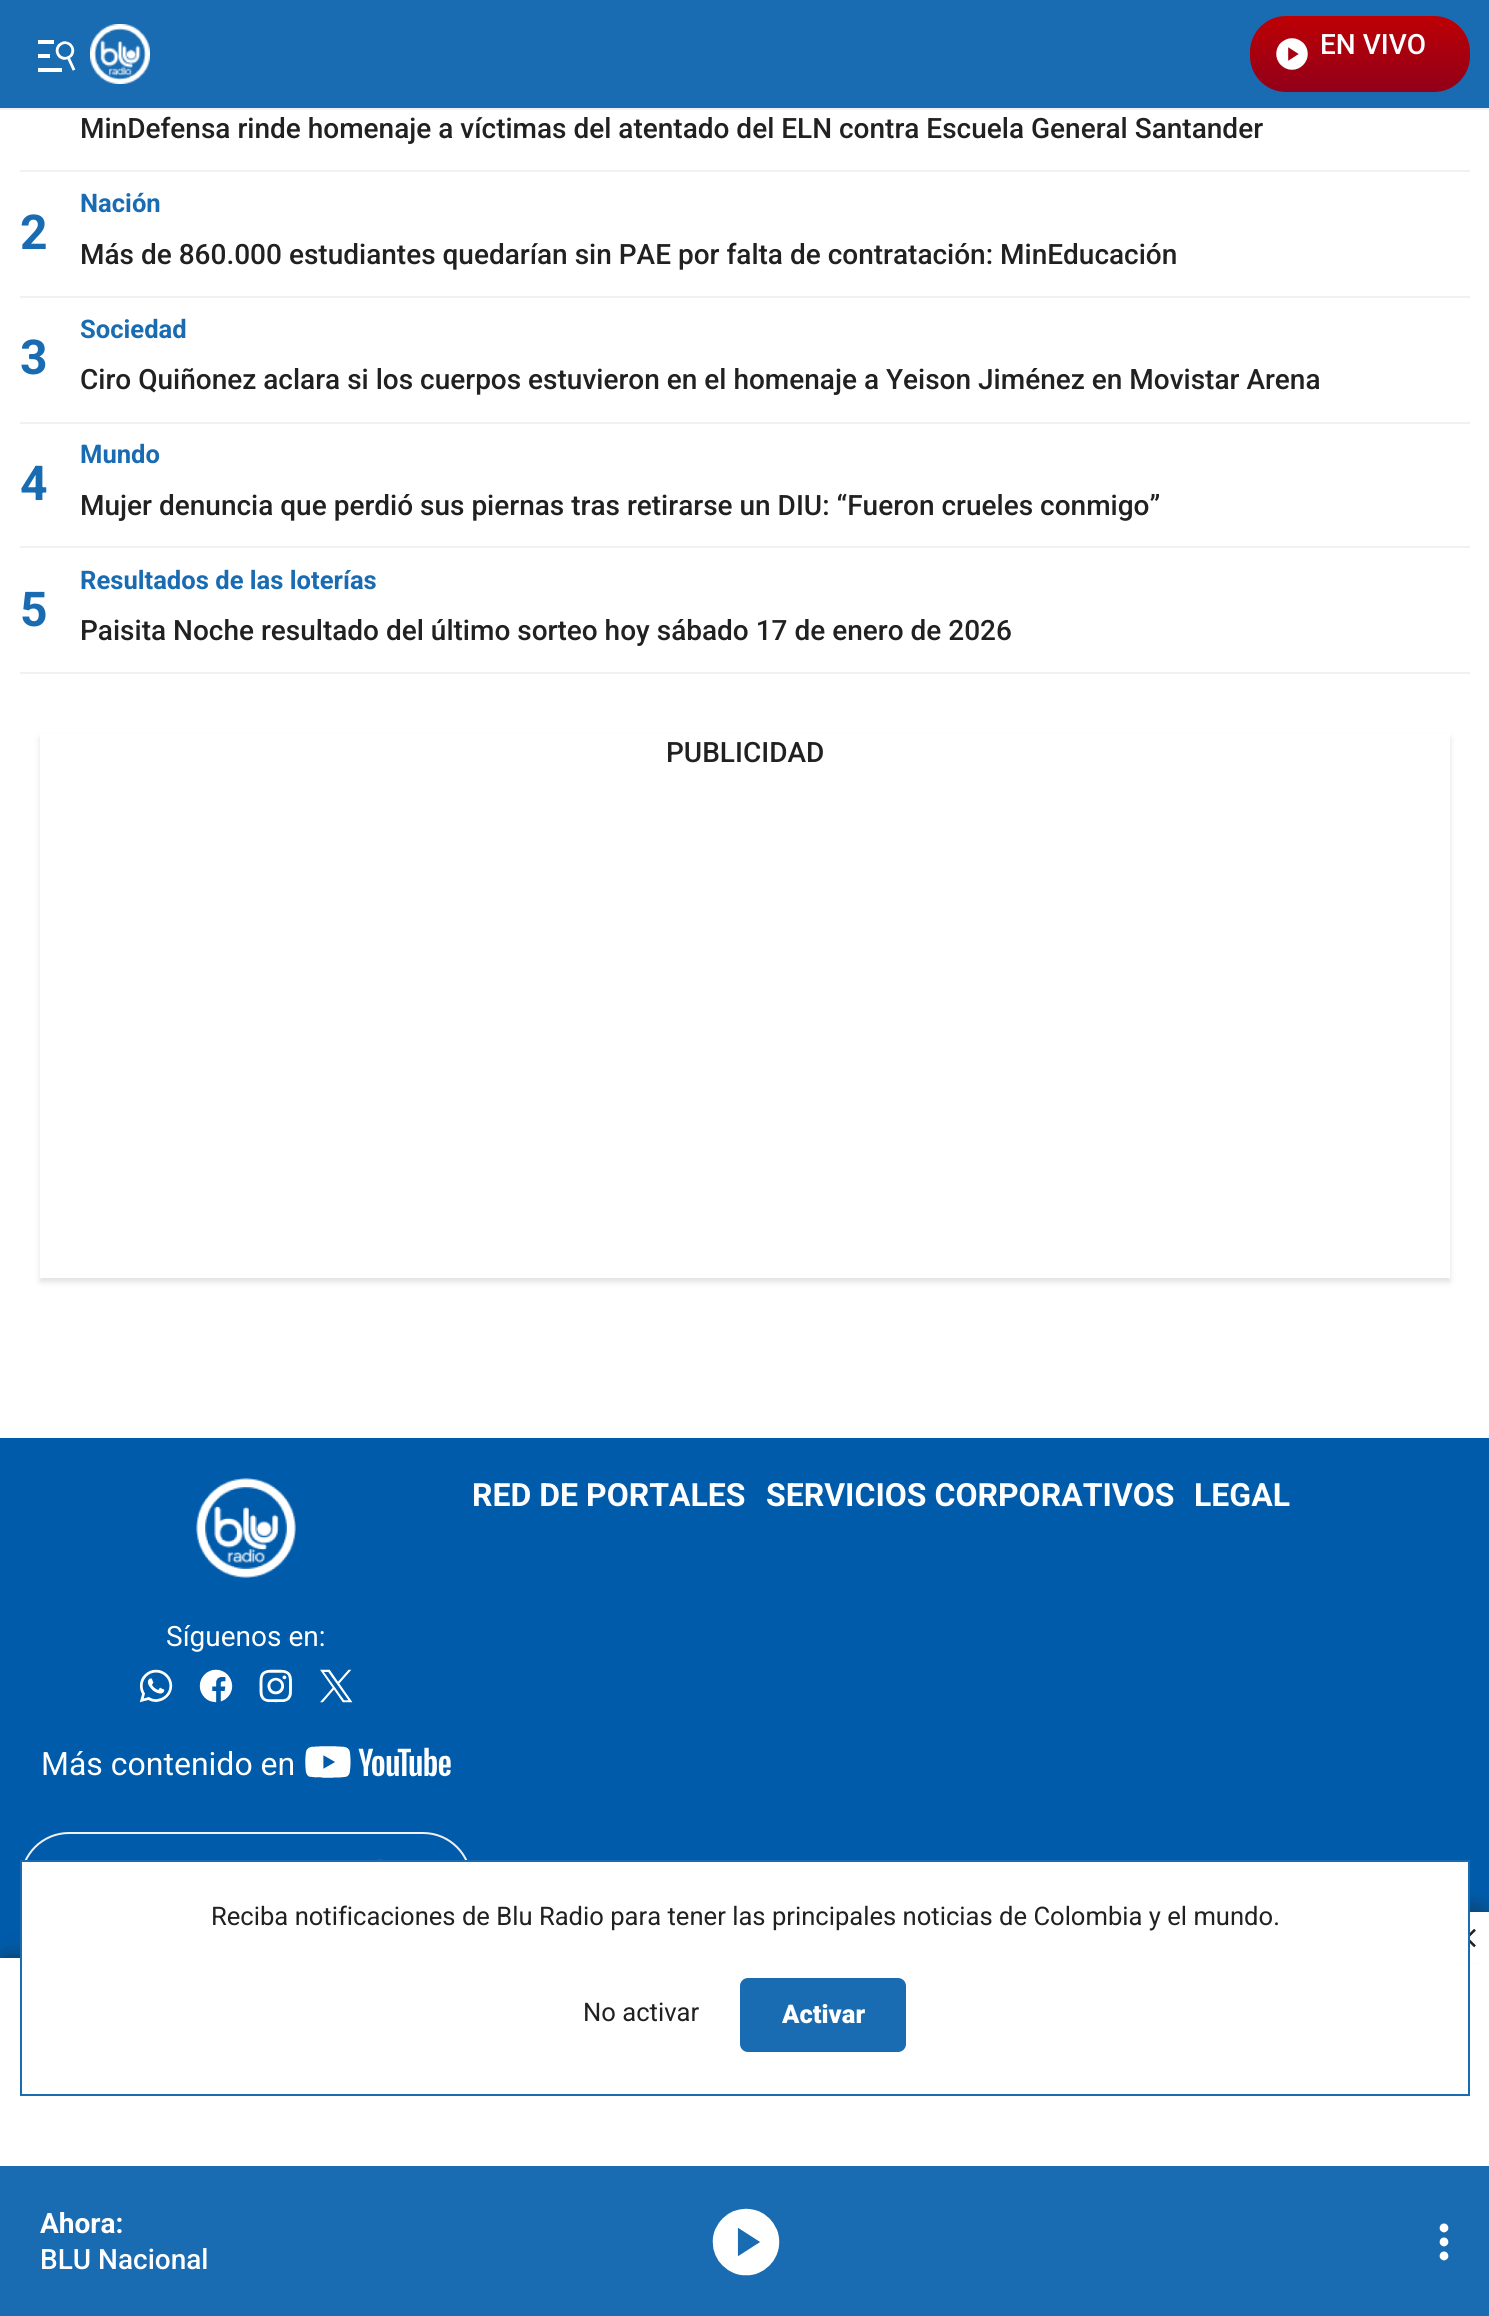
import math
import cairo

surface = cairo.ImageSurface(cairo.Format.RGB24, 1489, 2316)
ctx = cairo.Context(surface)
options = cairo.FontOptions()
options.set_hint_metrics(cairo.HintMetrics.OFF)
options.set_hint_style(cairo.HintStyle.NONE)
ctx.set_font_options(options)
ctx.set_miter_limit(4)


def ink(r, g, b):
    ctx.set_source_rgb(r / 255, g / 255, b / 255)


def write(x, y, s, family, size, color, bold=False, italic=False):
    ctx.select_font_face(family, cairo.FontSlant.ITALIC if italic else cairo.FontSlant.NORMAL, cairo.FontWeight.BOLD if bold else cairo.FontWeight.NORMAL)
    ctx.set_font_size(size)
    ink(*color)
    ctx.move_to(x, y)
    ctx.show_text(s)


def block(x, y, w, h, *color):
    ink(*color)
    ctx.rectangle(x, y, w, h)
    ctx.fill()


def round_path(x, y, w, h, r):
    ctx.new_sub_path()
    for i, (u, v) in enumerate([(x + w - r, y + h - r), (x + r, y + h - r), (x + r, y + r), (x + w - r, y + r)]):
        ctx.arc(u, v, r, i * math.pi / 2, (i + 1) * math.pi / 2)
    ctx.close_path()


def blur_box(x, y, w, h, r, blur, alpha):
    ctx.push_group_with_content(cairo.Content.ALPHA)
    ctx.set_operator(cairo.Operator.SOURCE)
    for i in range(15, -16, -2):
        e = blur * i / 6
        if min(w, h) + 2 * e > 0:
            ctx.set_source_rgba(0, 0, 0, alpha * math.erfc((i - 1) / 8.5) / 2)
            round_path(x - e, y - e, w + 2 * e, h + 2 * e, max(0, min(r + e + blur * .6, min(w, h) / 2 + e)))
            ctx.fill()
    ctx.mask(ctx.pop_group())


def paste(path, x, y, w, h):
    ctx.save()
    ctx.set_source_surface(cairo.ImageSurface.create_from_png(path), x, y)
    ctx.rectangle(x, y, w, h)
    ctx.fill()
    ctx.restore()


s1 = dict(family="Roboto Medium", size=28, color=(255, 255, 255))
s2 = dict(family="Roboto Medium", size=28, color=(33, 33, 33))
s3 = dict(family="Roboto", size=48, color=(25, 107, 178), bold=True)
s4 = dict(family="Roboto", size=25.6, color=(25, 107, 178), bold=True)
s5 = dict(family="Roboto", size=32, color=(255, 255, 255), bold=True)
s6 = dict(family="Roboto", size=28, color=(255, 255, 255))
s7 = dict(family="Roboto", size=32, color=(255, 255, 255))
s8 = dict(family="Roboto", size=25.6, color=(33, 33, 33))
s9 = dict(family="Roboto Black", size=25.6, color=(255, 255, 255))
s10 = dict(family="Roboto", size=28, color=(255, 255, 255), bold=True)

ink(255, 255, 255)
ctx.paint()
block(0, 0, 1489, 108, 25, 107, 178)
block(0, 108, 1489, 2, 241, 241, 241)
paste("pic1.png", 38, 40, 38, 32)
paste("pic2.png", 90, 24, 60, 60)
gradient = cairo.LinearGradient(1360, 16, 1360, 92)
gradient.add_color_stop_rgba(0, 0.741, 0, 0.02, 1)
gradient.add_color_stop_rgba(1, 0.569, 0, 0.098, 1)
ctx.set_source(gradient)
round_path(1250, 16, 220, 76, 36)
ctx.fill()
paste("pic3.png", 1276, 38, 32, 32)
write(1320, 54, "EN VIVO", **s1)
block(20, 170, 1450, 2, 241, 241, 241)
write(80, 138, "MinDefensa rinde homenaje a víctimas del atentado del ELN contra Escuela General Santander", **s2)
block(20, 296, 1450, 2, 241, 241, 241)
write(20, 249, "2", **s3)
write(80, 212, "Nación", **s4)
write(80, 264, "Más de 860.000 estudiantes quedarían sin PAE por falta de contratación: MinEducación", **s2)
block(20, 422, 1450, 2, 241, 241, 241)
write(20, 374, "3", **s3)
write(80, 338, "Sociedad", **s4)
write(80, 389, "Ciro Quiñonez aclara si los cuerpos estuvieron en el homenaje a Yeison Jiménez en Movistar Arena", **s2)
block(20, 546, 1450, 2, 241, 241, 241)
write(20, 500, "4", **s3)
write(80, 463, "Mundo", **s4)
write(80, 515, "Mujer denuncia que perdió sus piernas tras retirarse un DIU: “Fueron crueles conmigo”", **s2)
block(20, 672, 1450, 2, 241, 241, 241)
write(20, 626, "5", **s3)
write(80, 589, "Resultados de las loterías", **s4)
write(80, 640, "Paisita Noche resultado del último sorteo hoy sábado 17 de enero de 2026", **s2)
ctx.save()
ctx.set_fill_rule(cairo.FillRule.EVEN_ODD)
ctx.new_path()
ctx.move_to(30, 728)
ctx.line_to(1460, 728)
ctx.line_to(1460, 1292)
ctx.line_to(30, 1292)
ctx.close_path()
ctx.move_to(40, 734)
ctx.line_to(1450, 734)
ctx.line_to(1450, 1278)
ctx.line_to(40, 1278)
ctx.close_path()
ctx.clip()
ink(86, 86, 86)
blur_box(40, 738, 1410, 544, 0, 3, 0.18)
ctx.restore()
write(666, 762, "PUBLICIDAD", **s2)
block(0, 1438, 1489, 520, 0, 91, 170)
write(472, 1506, "RED DE PORTALES", **s5)
write(766, 1506, "SERVICIOS CORPORATIVOS", **s5)
write(1194, 1506, "LEGAL", **s5)
paste("pic4.png", 196, 1478, 100, 100)
write(166, 1646, "Síguenos en:", **s6)
paste("pic5.png", 139, 1669, 34, 34)
paste("pic6.png", 199, 1669, 34, 34)
paste("pic7.png", 259, 1669, 33, 34)
paste("pic8.png", 320, 1669, 33, 34)
write(41, 1775, "Más contenido en", **s7)
paste("pic9.png", 305, 1746, 146, 32)
round_path(21, 1833, 450, 96, 48)
ink(241, 241, 241)
ctx.stroke()
paste("pic10.png", 377, 1858, 5, 2)
ink(33, 33, 33)
blur_box(6, 1964, 1478, 196, 0, 12, 1)
block(0, 1958, 1489, 208, 255, 255, 255)
ink(33, 33, 33)
blur_box(1440, 1902, 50, 50, 14, 6, 0.3)
block(1470, 1912, 19, 50, 255, 255, 255)
paste("pic11.png", 1470, 1928, 6, 20)
block(22, 1862, 1446, 101, 255, 255, 255)
ctx.rectangle(21, 1861, 1448, 234)
ink(25, 107, 178)
ctx.stroke()
write(211, 1925, "Reciba notificaciones de Blu Radio para tener las principales noticias de Colombia y el mundo.", **s8)
write(583, 2021, "No activar", **s8)
ink(25, 107, 178)
round_path(741, 1979, 164, 72, 7)
ctx.fill_preserve()
ctx.stroke()
write(782, 2023, "Activar", **s9)
block(0, 2166, 1489, 150, 25, 107, 178)
write(40, 2233, "Ahora:", **s10)
write(40, 2269, "BLU Nacional", **s1)
paste("pic12.png", 712, 2208, 68, 68)
paste("pic13.png", 1439, 2223, 10, 38)
surface.write_to_png("screenshot.png")
